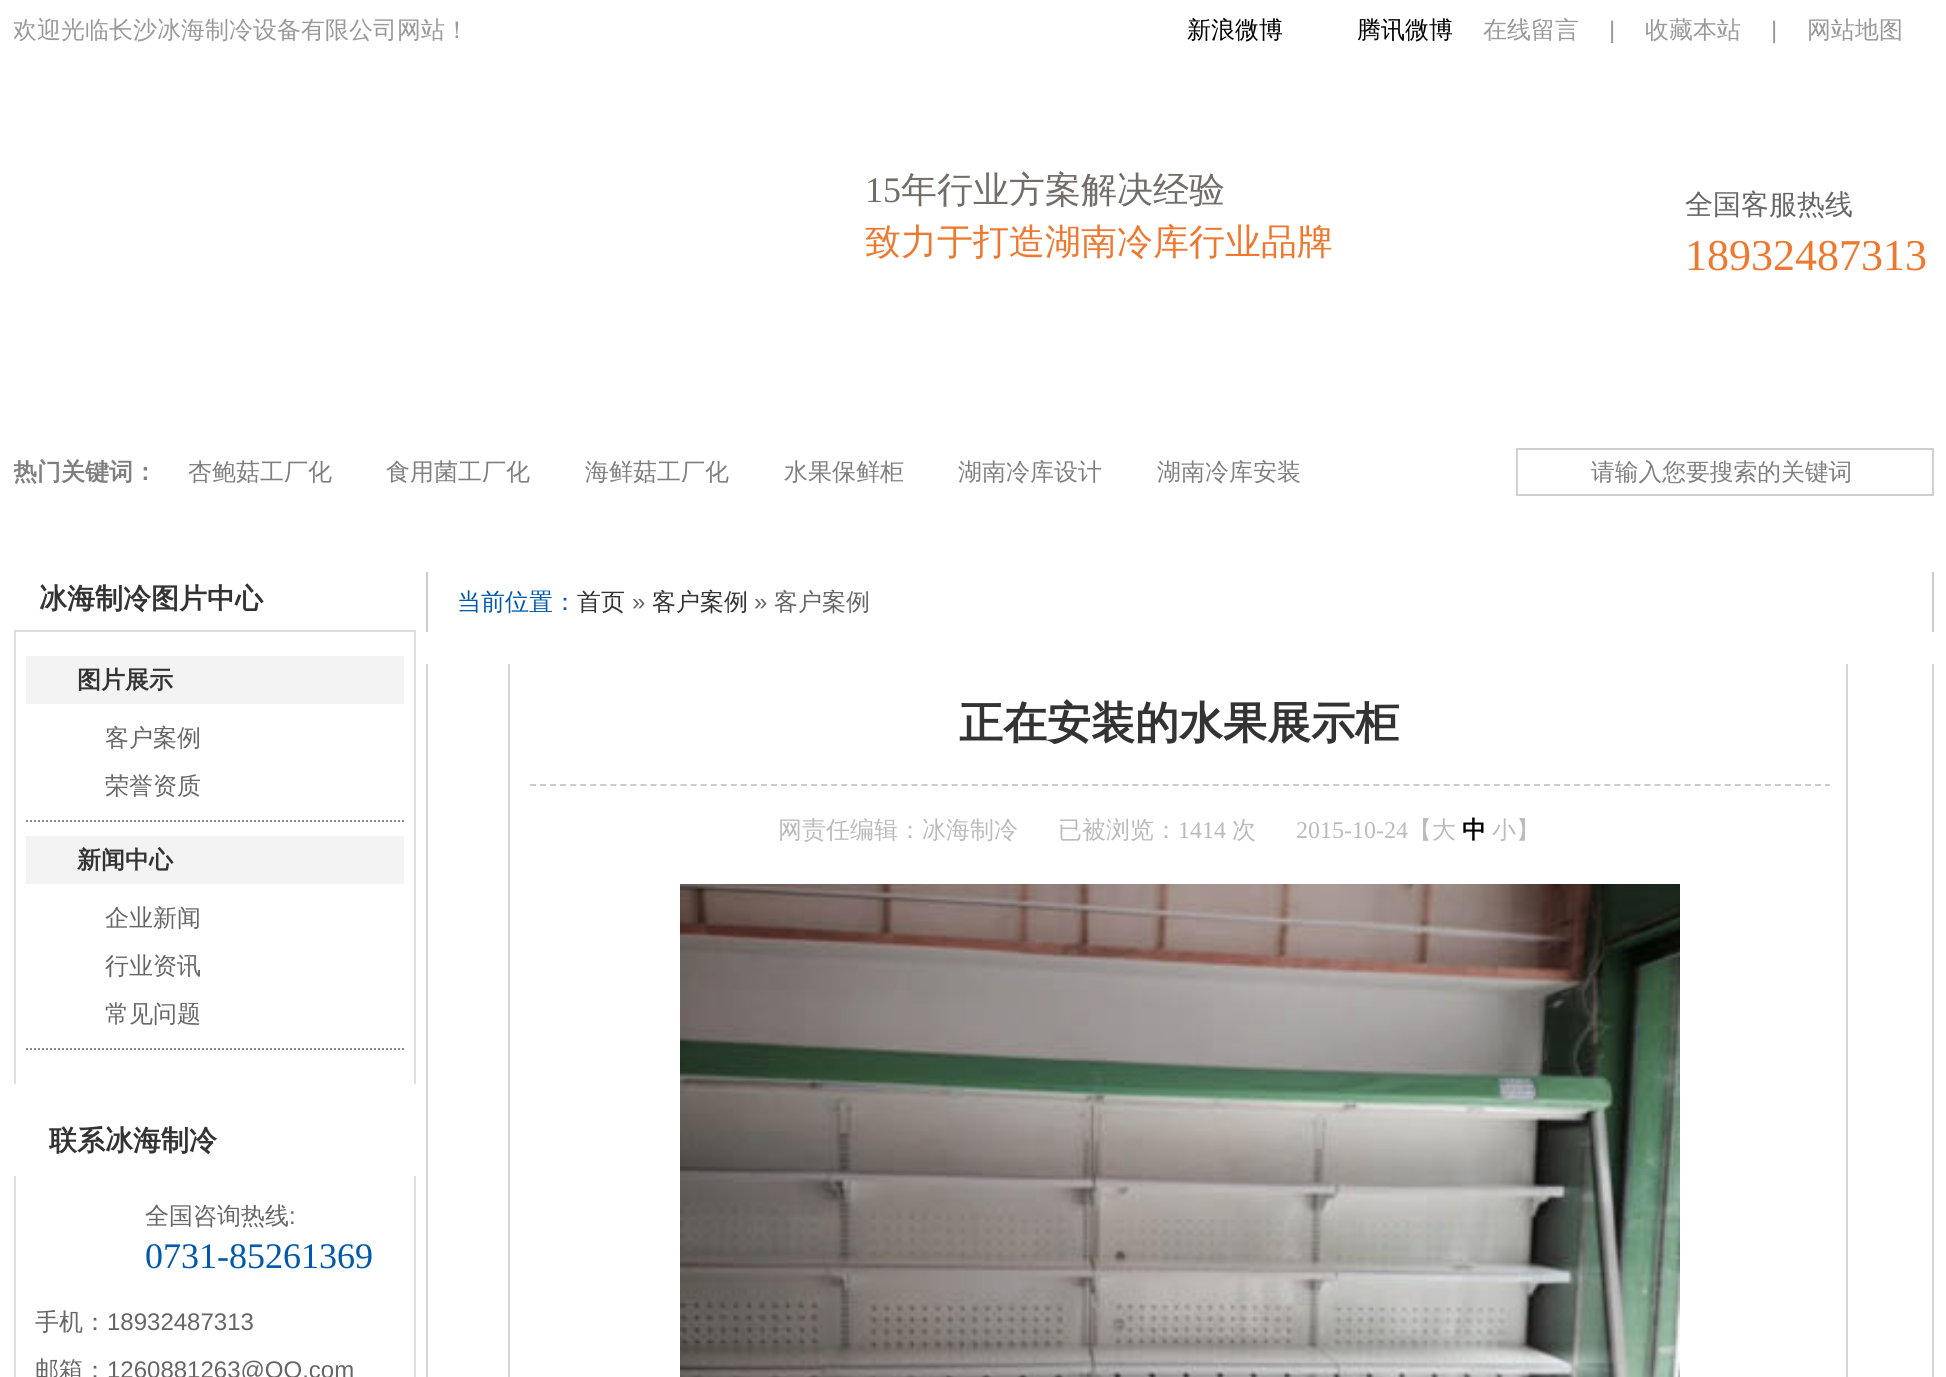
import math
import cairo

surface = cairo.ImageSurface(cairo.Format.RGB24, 1946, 1377)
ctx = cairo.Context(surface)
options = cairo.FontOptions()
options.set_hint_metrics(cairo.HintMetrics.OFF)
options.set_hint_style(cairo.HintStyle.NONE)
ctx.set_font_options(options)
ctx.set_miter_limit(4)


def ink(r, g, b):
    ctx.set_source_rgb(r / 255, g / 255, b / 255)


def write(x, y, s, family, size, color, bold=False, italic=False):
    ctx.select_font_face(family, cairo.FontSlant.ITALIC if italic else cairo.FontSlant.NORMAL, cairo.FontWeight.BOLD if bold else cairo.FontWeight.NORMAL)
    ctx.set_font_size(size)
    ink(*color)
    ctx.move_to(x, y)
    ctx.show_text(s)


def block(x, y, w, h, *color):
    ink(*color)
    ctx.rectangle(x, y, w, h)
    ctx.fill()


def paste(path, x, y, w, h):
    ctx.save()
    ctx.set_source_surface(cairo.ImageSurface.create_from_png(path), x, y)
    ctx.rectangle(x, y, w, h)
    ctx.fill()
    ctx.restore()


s1 = dict(family="WenQuanYi Zen Hei Medium", size=24, color=(153, 153, 153))
s2 = dict(family="WenQuanYi Zen Hei Medium", size=24, color=(0, 0, 0))
s3 = dict(family="Liberation Sans", size=24, color=(153, 153, 153))
s4 = dict(family="Liberation Serif", size=36, color=(115, 109, 105))
s5 = dict(family="WenQuanYi Zen Hei Medium", size=36, color=(115, 109, 105))
s6 = dict(family="WenQuanYi Zen Hei Medium", size=36, color=(238, 120, 47))
s7 = dict(family="WenQuanYi Zen Hei Medium", size=28, color=(102, 102, 102))
s8 = dict(family="Liberation Serif", size=44, color=(238, 120, 47))
s9 = dict(family="WenQuanYi Zen Hei", size=24, color=(127, 127, 127), bold=True)
s10 = dict(family="WenQuanYi Zen Hei Medium", size=24, color=(127, 127, 127))
s11 = dict(family="WenQuanYi Zen Hei Medium", size=23.75, color=(127, 127, 127))
s12 = dict(family="WenQuanYi Zen Hei", size=28, color=(51, 51, 51), bold=True)
s13 = dict(family="WenQuanYi Zen Hei", size=24, color=(51, 51, 51), bold=True)
s14 = dict(family="WenQuanYi Zen Hei Medium", size=24, color=(102, 102, 102))
s15 = dict(family="Liberation Sans", size=24, color=(102, 102, 102))
s16 = dict(family="Liberation Serif", size=36, color=(0, 89, 173))
s17 = dict(family="WenQuanYi Zen Hei Medium", size=24, color=(0, 89, 173))
s18 = dict(family="WenQuanYi Zen Hei Medium", size=24, color=(51, 51, 51))
s19 = dict(family="WenQuanYi Zen Hei", size=44, color=(51, 51, 51), bold=True)
s20 = dict(family="WenQuanYi Zen Hei Medium", size=24, color=(188, 187, 187))
s21 = dict(family="Liberation Serif", size=24, color=(188, 187, 187))
s22 = dict(family="WenQuanYi Zen Hei", size=24, color=(0, 0, 0), bold=True)

ink(255, 255, 255)
ctx.paint()
ctx.save()
ctx.rectangle(14, 0, 1920, 60)
ctx.clip()
write(13, 38, "欢迎光临长沙冰海制冷设备有限公司网站！", **s1)
ctx.restore()
write(1187, 38, "新浪微博", **s2)
write(1357, 38, "腾讯微博", **s2)
write(1483, 38, "在线留言", **s1)
write(1609, 38, "|", **s3)
write(1645, 38, "收藏本站", **s1)
write(1771, 38, "|", **s3)
write(1807, 38, "网站地图", **s1)
write(865, 202, "15", **s4)
write(901, 202, "年行业方案解决经验", **s5)
write(865, 254, "致力于打造湖南冷库行业品牌", **s6)
write(1685, 214, "全国客服热线", **s7)
write(1685, 270, "18932487313", **s8)
ctx.save()
ctx.rectangle(14, 434, 1920, 80)
ctx.clip()
write(13, 480, "热门关键词：", **s9)
ctx.restore()
write(188, 480, "杏鲍菇工厂化", **s10)
write(386, 480, "食用菌工厂化", **s10)
write(585, 480, "海鲜菇工厂化", **s10)
write(784, 480, "水果保鲜柜", **s10)
write(958, 480, "湖南冷库设计", **s10)
write(1157, 480, "湖南冷库安装", **s10)
ctx.rectangle(1517, 449, 416, 46)
ink(208, 208, 208)
ctx.stroke()
write(1591, 480, "请输入您要搜索的关键词", **s11)
write(39, 608, "冰海制冷图片中心", **s12)
block(14, 630, 402, 2, 223, 223, 223)
block(414, 630, 2, 454, 223, 223, 223)
block(14, 630, 2, 454, 223, 223, 223)
block(26, 656, 378, 48, 243, 243, 243)
write(77, 688, "图片展示", **s13)
ctx.new_path()
ctx.move_to(26, 821)
ctx.line_to(404, 821)
ink(139, 139, 139)
ctx.set_dash([2, 2])
ctx.stroke()
write(105, 746, "客户案例", **s14)
write(105, 794, "荣誉资质", **s14)
block(26, 836, 378, 48, 243, 243, 243)
write(77, 868, "新闻中心", **s13)
ctx.new_path()
ctx.move_to(26, 1049)
ctx.line_to(404, 1049)
ink(139, 139, 139)
ctx.stroke()
write(105, 926, "企业新闻", **s14)
write(105, 974, "行业资讯", **s14)
write(105, 1022, "常见问题", **s14)
write(49, 1150, "联系冰海制冷", **s12)
block(414, 1176, 2, 201, 223, 223, 223)
block(14, 1176, 2, 201, 223, 223, 223)
write(145, 1224, "全国咨询热线", **s14)
write(289, 1224, ":", **s15)
write(145, 1268, "0731-85261369", **s16)
write(35, 1330, "手机：", **s14)
write(107, 1330, "18932487313", **s15)
write(35, 1378, "邮箱：", **s14)
write(107, 1378, "1260881263@QQ.com", **s15)
block(1932, 572, 2, 60, 204, 204, 204)
block(426, 572, 2, 60, 204, 204, 204)
write(457, 610, "当前位置：", **s17)
write(577, 610, "首页", **s18)
write(632, 610, "»", **s15)
write(652, 610, "客户案例", **s18)
write(754, 610, "»", **s15)
write(774, 610, "客户案例", **s14)
block(1932, 664, 2, 713, 213, 213, 213)
block(426, 664, 2, 713, 213, 213, 213)
block(1846, 664, 2, 713, 213, 213, 213)
block(508, 664, 2, 713, 213, 213, 213)
ctx.new_path()
ctx.move_to(530, 785)
ctx.line_to(1830, 785)
ink(204, 204, 204)
ctx.set_dash([6, 4.04])
ctx.stroke()
write(959, 738, "正在安装的水果展示柜", **s19)
write(778, 838, "网责任编辑：冰海制冷", **s20)
write(1058, 838, "已被浏览：", **s20)
write(1178, 838, "1414", **s21)
write(1232, 838, "次", **s20)
write(1296, 838, "2015-10-24", **s21)
write(1408, 838, "【大", **s20)
write(1462, 838, "中", **s22)
write(1492, 838, "小】", **s20)
paste("pic1.png", 680, 884, 1000, 493)
surface.write_to_png("screenshot.png")
